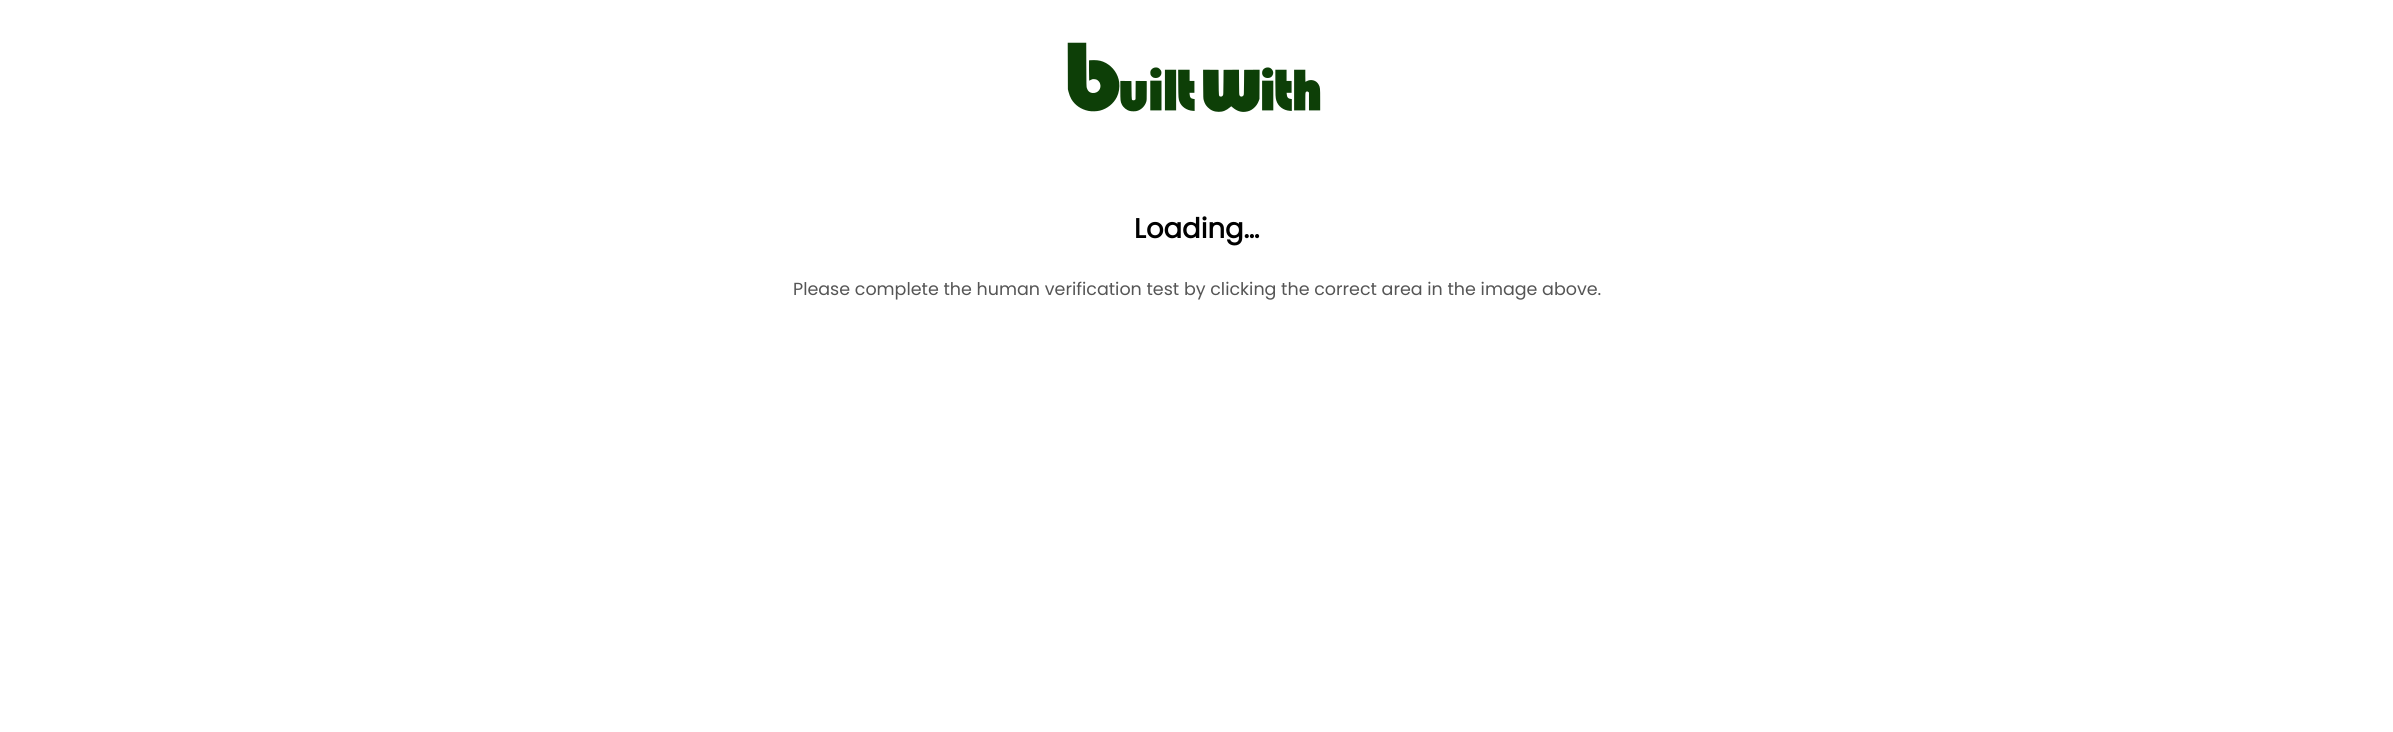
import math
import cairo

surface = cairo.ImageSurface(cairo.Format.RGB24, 2393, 732)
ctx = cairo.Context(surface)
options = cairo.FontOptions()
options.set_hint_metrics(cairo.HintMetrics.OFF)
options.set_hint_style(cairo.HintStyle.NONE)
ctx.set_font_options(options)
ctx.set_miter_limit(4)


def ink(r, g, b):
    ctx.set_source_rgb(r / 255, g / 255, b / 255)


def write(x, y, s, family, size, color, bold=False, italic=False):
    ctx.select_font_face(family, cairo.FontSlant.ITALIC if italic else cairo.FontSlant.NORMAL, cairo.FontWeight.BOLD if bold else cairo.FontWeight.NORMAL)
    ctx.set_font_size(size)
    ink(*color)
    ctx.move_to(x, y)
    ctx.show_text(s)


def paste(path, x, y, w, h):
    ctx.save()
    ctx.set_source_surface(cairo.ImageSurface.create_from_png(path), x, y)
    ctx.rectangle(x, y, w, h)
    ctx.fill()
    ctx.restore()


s1 = dict(family="Poppins", size=27.5, color=(0, 0, 0), bold=True)
s2 = dict(family="Poppins", size=17.5, color=(85, 85, 85))

ink(255, 255, 255)
ctx.paint()
paste("pic1.png", 1067, 42, 254, 70)
write(1134, 238, "Loading…", **s1)
write(793, 295, "Please complete the human verification test by clicking the correct area in the image above.", **s2)
surface.write_to_png("screenshot.png")
